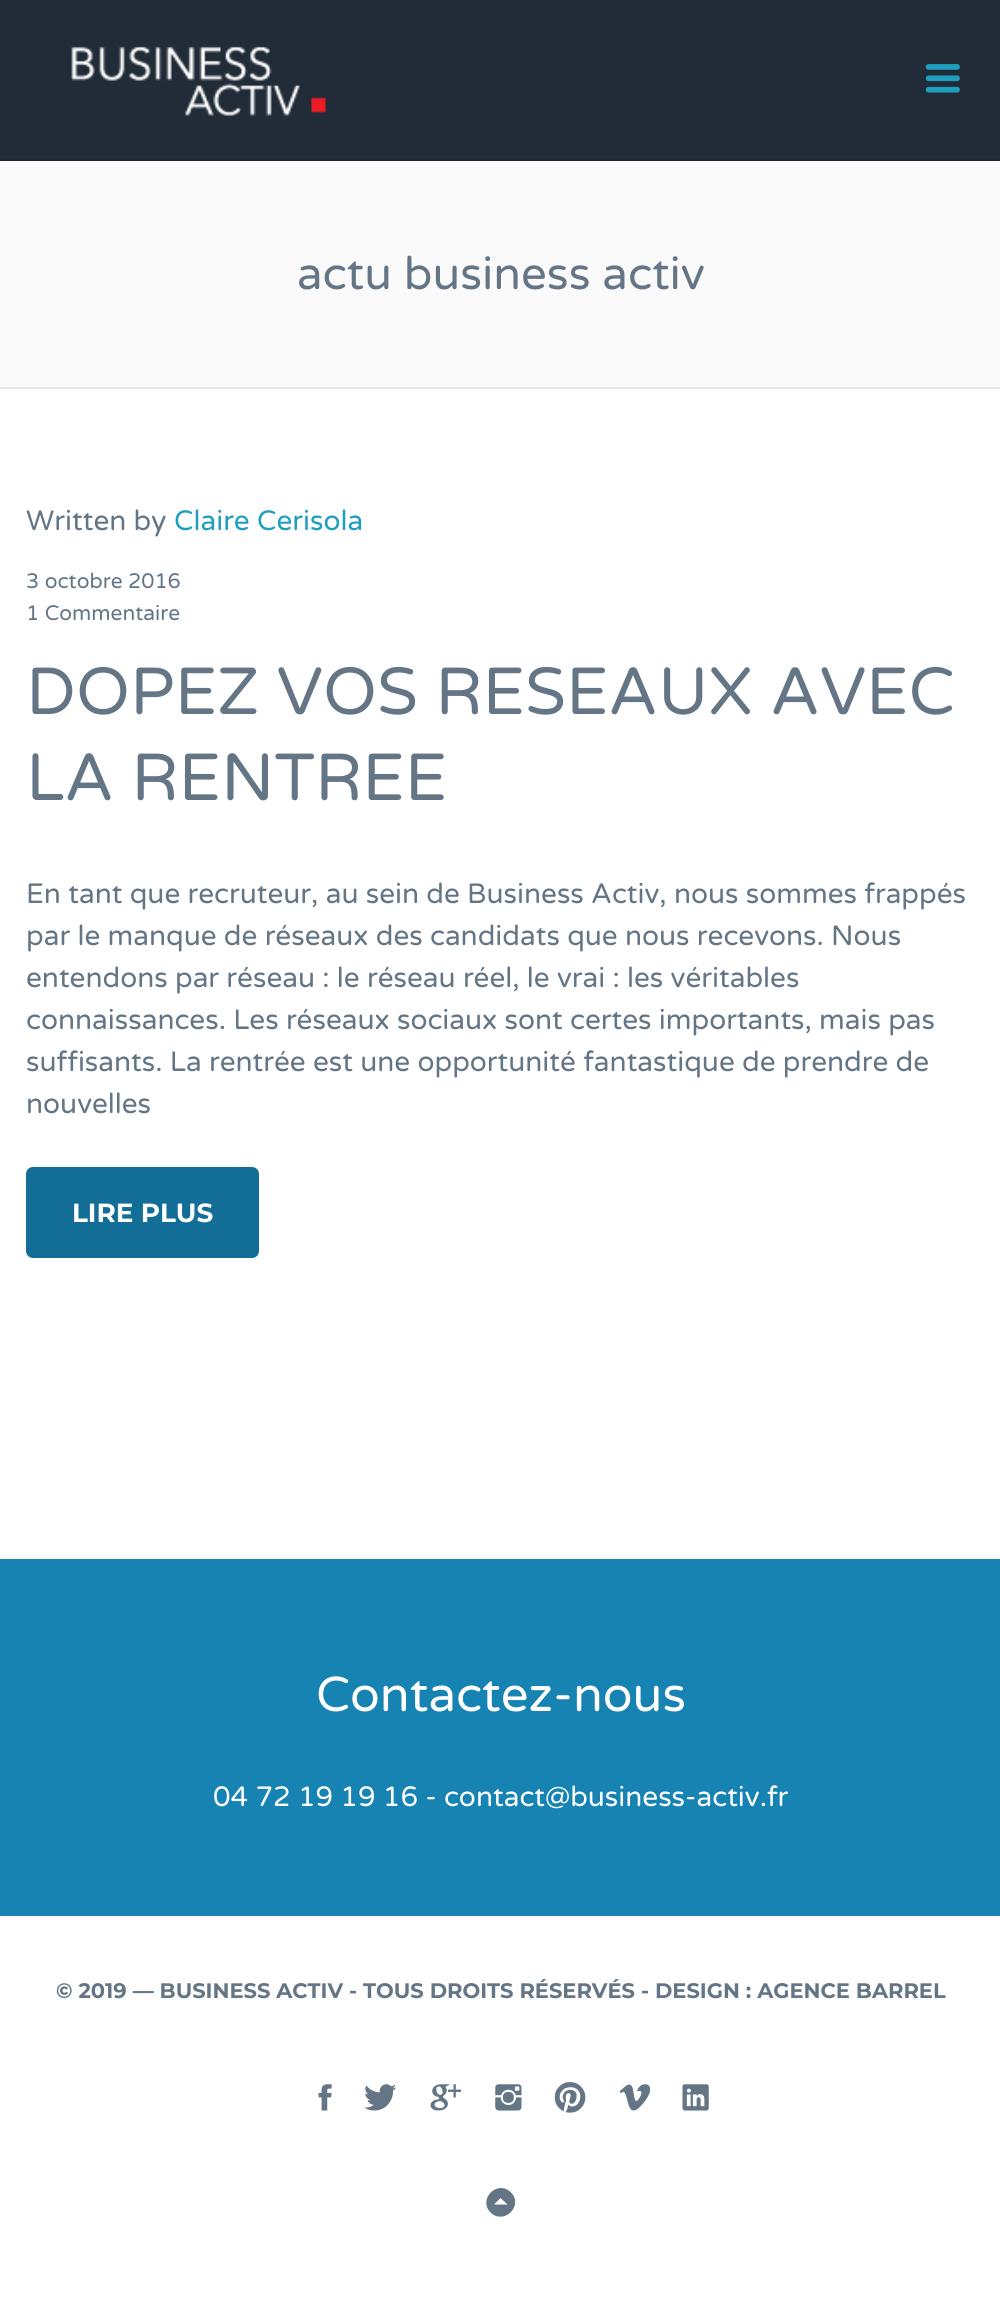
import math
import cairo

surface = cairo.ImageSurface(cairo.Format.RGB24, 1000, 2317)
ctx = cairo.Context(surface)
options = cairo.FontOptions()
options.set_hint_metrics(cairo.HintMetrics.OFF)
options.set_hint_style(cairo.HintStyle.NONE)
ctx.set_font_options(options)
ctx.set_miter_limit(4)


def ink(r, g, b):
    ctx.set_source_rgb(r / 255, g / 255, b / 255)


def write(x, y, s, family, size, color, bold=False, italic=False):
    ctx.select_font_face(family, cairo.FontSlant.ITALIC if italic else cairo.FontSlant.NORMAL, cairo.FontWeight.BOLD if bold else cairo.FontWeight.NORMAL)
    ctx.set_font_size(size)
    ink(*color)
    ctx.move_to(x, y)
    ctx.show_text(s)


def block(x, y, w, h, *color):
    ink(*color)
    ctx.rectangle(x, y, w, h)
    ctx.fill()


def round_path(x, y, w, h, r):
    ctx.new_sub_path()
    for i, (u, v) in enumerate([(x + w - r, y + h - r), (x + r, y + h - r), (x + r, y + r), (x + w - r, y + r)]):
        ctx.arc(u, v, r, i * math.pi / 2, (i + 1) * math.pi / 2)
    ctx.close_path()


def paste(path, x, y, w, h):
    ctx.save()
    ctx.set_source_surface(cairo.ImageSurface.create_from_png(path), x, y)
    ctx.rectangle(x, y, w, h)
    ctx.fill()
    ctx.restore()


s1 = dict(family="Varela Round", size=45.5, color=(100, 117, 133))
s2 = dict(family="Varela Round", size=28, color=(100, 117, 133))
s3 = dict(family="Varela Round", size=28, color=(30, 159, 191))
s4 = dict(family="Varela Round", size=21, color=(100, 117, 133))
s5 = dict(family="Varela Round", size=66.5, color=(100, 117, 133))
s6 = dict(family="Montserrat", size=26.25, color=(255, 255, 255), bold=True)
s7 = dict(family="Varela Round", size=49, color=(255, 255, 255))
s8 = dict(family="Varela Round", size=28, color=(255, 255, 255))
s9 = dict(family="Montserrat", size=21, color=(100, 117, 133), bold=True)

ink(255, 255, 255)
ctx.paint()
block(0, 0, 1000, 159, 34, 43, 56)
block(0, 159, 1000, 2, 31, 39, 50)
paste("pic1.png", 71, 46, 255, 70)
paste("pic2.png", 925, 64, 35, 29)
block(0, 161, 1000, 226, 250, 250, 250)
block(0, 387, 1000, 2, 231, 231, 231)
write(297, 289, "actu business activ", **s1)
write(26, 530, "Written by", **s2)
write(174, 530, "Claire Cerisola", **s3)
write(26, 588, "3 octobre 2016", **s4)
write(26, 620, "1 Commentaire", **s4)
write(26, 714, "DOPEZ VOS RESEAUX AVEC", **s5)
write(26, 800, "LA RENTREE", **s5)
write(26, 903, "En tant que recruteur, au sein de Business Activ, nous sommes frappés", **s2)
write(26, 945, "par le manque de réseaux des candidats que nous recevons. Nous", **s2)
write(26, 987, "entendons par réseau : le réseau réel, le vrai : les véritables", **s2)
write(26, 1029, "connaissances. Les réseaux sociaux sont certes importants, mais pas", **s2)
write(26, 1071, "suffisants. La rentrée est une opportunité fantastique de prendre de", **s2)
write(26, 1113, "nouvelles", **s2)
ink(18, 110, 150)
round_path(26, 1167, 233, 91, 7)
ctx.fill()
write(72, 1222, "LIRE PLUS", **s6)
block(0, 1559, 1000, 357, 23, 131, 178)
write(316, 1711, "Contactez-nous", **s7)
write(213, 1806, "04 72 19 19 16 - contact@business-activ.fr", **s8)
write(56, 1998, "© 2019 — BUSINESS ACTIV - TOUS DROITS RÉSERVÉS - DESIGN : AGENCE BARREL", **s9)
paste("pic3.png", 318, 2084, 14, 27)
paste("pic4.png", 364, 2084, 33, 27)
paste("pic5.png", 430, 2084, 32, 27)
paste("pic6.png", 495, 2084, 27, 27)
paste("pic7.png", 554, 2082, 32, 31)
paste("pic8.png", 619, 2084, 32, 27)
paste("pic9.png", 682, 2084, 27, 27)
ctx.new_path()
ctx.move_to(511, 2192.5)
ctx.curve_to(524, 2205.5, 504, 2225.5, 490.5, 2212.5)
ctx.curve_to(477.5, 2199, 497.5, 2179, 511, 2192.5)
ctx.close_path()
ctx.move_to(507.5, 2204.5)
ctx.line_to(500.5, 2198)
ctx.line_to(494, 2204.5)
ctx.close_path()
ctx.fill()
surface.write_to_png("screenshot.png")
